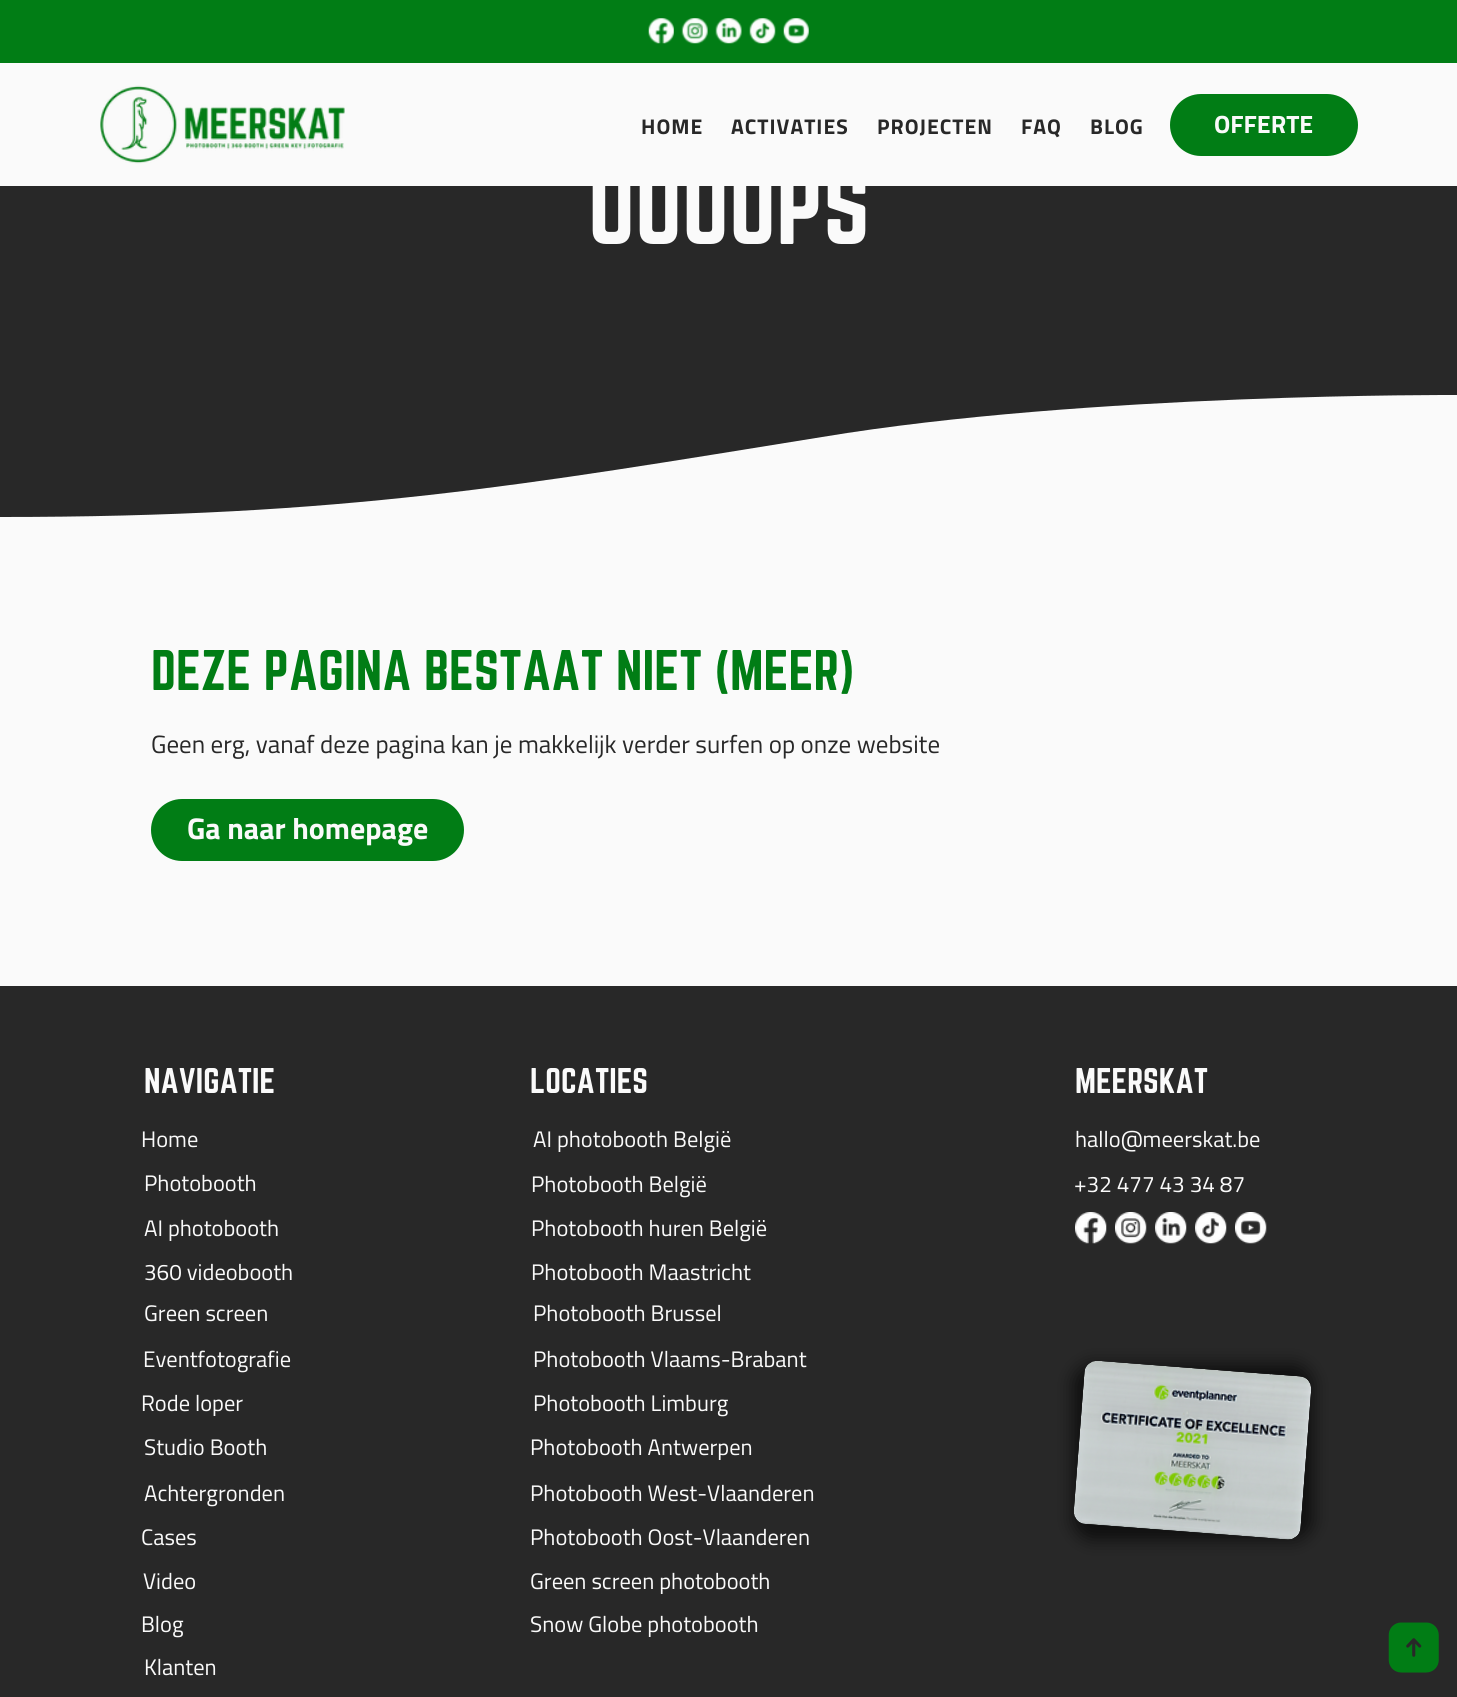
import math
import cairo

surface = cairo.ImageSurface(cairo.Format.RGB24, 1457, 1697)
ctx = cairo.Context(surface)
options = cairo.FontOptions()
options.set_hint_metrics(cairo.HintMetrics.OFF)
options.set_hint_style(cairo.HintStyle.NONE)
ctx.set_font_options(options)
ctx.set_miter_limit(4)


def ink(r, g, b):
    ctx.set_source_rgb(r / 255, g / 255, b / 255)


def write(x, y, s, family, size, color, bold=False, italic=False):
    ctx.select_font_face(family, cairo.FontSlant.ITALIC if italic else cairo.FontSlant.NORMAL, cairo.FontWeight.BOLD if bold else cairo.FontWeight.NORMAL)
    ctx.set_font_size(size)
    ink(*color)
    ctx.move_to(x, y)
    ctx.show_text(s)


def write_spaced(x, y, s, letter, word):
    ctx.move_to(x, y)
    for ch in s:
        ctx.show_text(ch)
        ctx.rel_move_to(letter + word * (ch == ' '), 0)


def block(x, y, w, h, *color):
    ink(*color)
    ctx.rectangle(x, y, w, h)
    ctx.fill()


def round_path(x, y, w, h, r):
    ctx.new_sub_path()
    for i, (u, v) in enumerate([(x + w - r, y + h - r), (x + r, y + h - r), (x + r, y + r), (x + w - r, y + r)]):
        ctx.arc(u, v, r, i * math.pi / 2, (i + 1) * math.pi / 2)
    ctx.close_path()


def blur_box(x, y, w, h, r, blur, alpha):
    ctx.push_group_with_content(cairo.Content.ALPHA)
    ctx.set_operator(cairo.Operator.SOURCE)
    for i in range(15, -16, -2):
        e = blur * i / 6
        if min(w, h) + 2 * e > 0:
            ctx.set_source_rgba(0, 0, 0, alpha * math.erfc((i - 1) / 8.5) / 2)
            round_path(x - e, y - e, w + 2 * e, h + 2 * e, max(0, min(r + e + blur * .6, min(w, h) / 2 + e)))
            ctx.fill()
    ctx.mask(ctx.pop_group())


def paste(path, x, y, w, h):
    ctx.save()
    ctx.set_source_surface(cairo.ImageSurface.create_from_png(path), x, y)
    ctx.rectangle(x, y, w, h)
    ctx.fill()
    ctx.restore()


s1 = dict(family="Cairo", size=25, color=(250, 250, 250), bold=True)
s2 = dict(family="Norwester", size=94, color=(250, 250, 250))
s3 = dict(family="Norwester", size=50, color=(1, 125, 21))
s4 = dict(family="Cairo", size=25, color=(40, 40, 40))
s5 = dict(family="Cairo", size=30, color=(250, 250, 250), bold=True)
s6 = dict(family="Norwester", size=31.25, color=(250, 250, 250))
s7 = dict(family="Cairo", size=22.5, color=(250, 250, 250))

ink(250, 250, 250)
ctx.paint()
block(0, 0, 1457, 63, 1, 125, 21)
paste("pic1.png", 648, 18, 26, 26)
paste("pic2.png", 681, 18, 27, 26)
paste("pic3.png", 715, 18, 27, 26)
paste("pic4.png", 749, 18, 27, 26)
paste("pic5.png", 783, 18, 26, 26)
paste("pic6.png", 100, 85, 245, 79)
ctx.select_font_face("Cairo", cairo.FontSlant.NORMAL, cairo.FontWeight.BOLD)
ctx.set_font_size(21.25)
ink(40, 40, 40)
write_spaced(641, 134, "HOME", 1, 0)
write_spaced(731, 134, "ACTIVATIES", 1, 0)
write_spaced(877, 134, "PROJECTEN", 1, 0)
write_spaced(1021, 134, "FAQ", 1, 0)
write_spaced(1090, 134, "BLOG", 1, 0)
ink(1, 125, 21)
round_path(1171.5, 95.5, 185, 59, 29.5)
ctx.fill_preserve()
ctx.set_line_width(3)
ctx.stroke()
write(1214, 133, "OFFERTE", **s1)
block(0, 186, 1457, 331, 40, 40, 40)
ctx.set_source_rgba(0.157, 0.157, 0.157, 0.1)
ctx.rectangle(592, 186, 273, 1)
ctx.fill()
write(588, 244, "OOOOPS", **s2)
ctx.new_path()
ctx.move_to(0, 520)
ctx.line_to(0, 517)
ctx.curve_to(346, 517, 524, 485, 822, 437)
ctx.curve_to(1086, 393, 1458, 395, 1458, 395)
ctx.line_to(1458, 520)
ctx.close_path()
ctx.fill()
write(151, 690, "DEZE PAGINA BESTAAT NIET (MEER)", **s3)
write(151, 753, "Geen erg, vanaf deze pagina kan je makkelijk verder surfen op onze website", **s4)
ink(1, 125, 21)
round_path(152.5, 800.5, 310, 59, 29.5)
ctx.fill_preserve()
ctx.stroke()
write(187, 839, "Ga naar homepage", **s5)
block(0, 986, 1457, 711, 40, 40, 40)
write(144, 1093, "NAVIGATIE", **s6)
write(530, 1093, "LOCATIES", **s6)
write(1075, 1093, "MEERSKAT", **s6)
write(141, 1147, "Home", **s7)
write(533, 1147, "AI photobooth België", **s7)
write(1075, 1147, "hallo@meerskat.be", **s7)
write(144, 1191, "Photobooth", **s7)
write(531, 1192, "Photobooth België", **s7)
write(1074, 1192, "+32 477 43 34 87", **s7)
write(144, 1236, "AI photobooth", **s7)
write(531, 1236, "Photobooth huren België", **s7)
paste("pic7.png", 1075, 1212, 32, 32)
paste("pic8.png", 1115, 1212, 32, 32)
paste("pic9.png", 1155, 1212, 32, 32)
paste("pic10.png", 1195, 1212, 32, 32)
paste("pic11.png", 1235, 1212, 32, 32)
write(144, 1280, "360 videobooth", **s7)
write(531, 1280, "Photobooth Maastricht", **s7)
write(144, 1321, "Green screen", **s7)
write(533, 1321, "Photobooth Brussel", **s7)
write(143, 1367, "Eventfotografie", **s7)
write(533, 1367, "Photobooth Vlaams-Brabant", **s7)
ink(0, 0, 0)
blur_box(1073, 1364, 240, 176, 19, 8.5, 0.62)
paste("pic12.png", 1073, 1361, 239, 179)
write(141, 1411, "Rode loper", **s7)
write(533, 1411, "Photobooth Limburg", **s7)
write(144, 1455, "Studio Booth", **s7)
write(530, 1455, "Photobooth Antwerpen", **s7)
write(144, 1501, "Achtergronden", **s7)
write(530, 1501, "Photobooth West-Vlaanderen", **s7)
write(141, 1545, "Cases", **s7)
write(530, 1545, "Photobooth Oost-Vlaanderen", **s7)
write(143, 1589, "Video", **s7)
write(530, 1589, "Green screen photobooth", **s7)
write(141, 1632, "Blog", **s7)
write(530, 1632, "Snow Globe photobooth", **s7)
write(144, 1675, "Klanten", **s7)
paste("pic13.png", 1388, 1622, 51, 51)
surface.write_to_png("screenshot.png")
